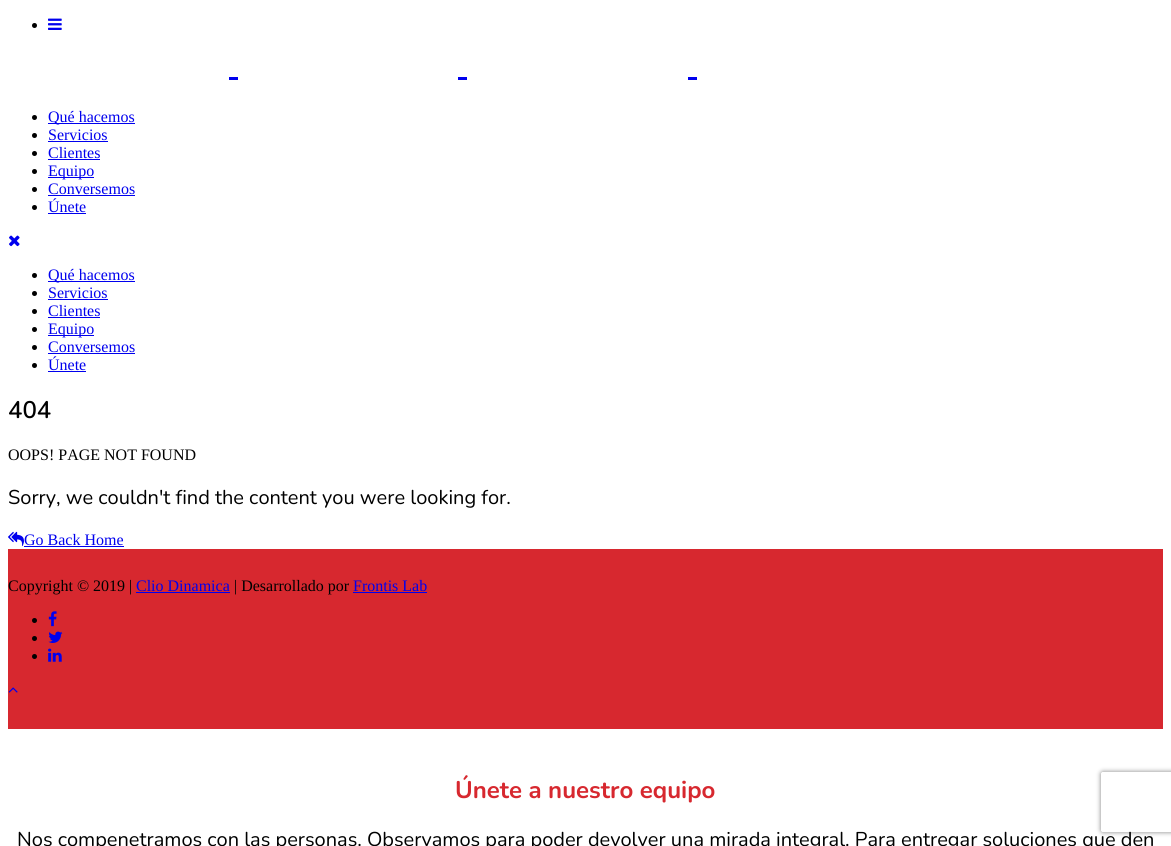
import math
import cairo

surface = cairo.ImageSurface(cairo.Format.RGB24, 1171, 846)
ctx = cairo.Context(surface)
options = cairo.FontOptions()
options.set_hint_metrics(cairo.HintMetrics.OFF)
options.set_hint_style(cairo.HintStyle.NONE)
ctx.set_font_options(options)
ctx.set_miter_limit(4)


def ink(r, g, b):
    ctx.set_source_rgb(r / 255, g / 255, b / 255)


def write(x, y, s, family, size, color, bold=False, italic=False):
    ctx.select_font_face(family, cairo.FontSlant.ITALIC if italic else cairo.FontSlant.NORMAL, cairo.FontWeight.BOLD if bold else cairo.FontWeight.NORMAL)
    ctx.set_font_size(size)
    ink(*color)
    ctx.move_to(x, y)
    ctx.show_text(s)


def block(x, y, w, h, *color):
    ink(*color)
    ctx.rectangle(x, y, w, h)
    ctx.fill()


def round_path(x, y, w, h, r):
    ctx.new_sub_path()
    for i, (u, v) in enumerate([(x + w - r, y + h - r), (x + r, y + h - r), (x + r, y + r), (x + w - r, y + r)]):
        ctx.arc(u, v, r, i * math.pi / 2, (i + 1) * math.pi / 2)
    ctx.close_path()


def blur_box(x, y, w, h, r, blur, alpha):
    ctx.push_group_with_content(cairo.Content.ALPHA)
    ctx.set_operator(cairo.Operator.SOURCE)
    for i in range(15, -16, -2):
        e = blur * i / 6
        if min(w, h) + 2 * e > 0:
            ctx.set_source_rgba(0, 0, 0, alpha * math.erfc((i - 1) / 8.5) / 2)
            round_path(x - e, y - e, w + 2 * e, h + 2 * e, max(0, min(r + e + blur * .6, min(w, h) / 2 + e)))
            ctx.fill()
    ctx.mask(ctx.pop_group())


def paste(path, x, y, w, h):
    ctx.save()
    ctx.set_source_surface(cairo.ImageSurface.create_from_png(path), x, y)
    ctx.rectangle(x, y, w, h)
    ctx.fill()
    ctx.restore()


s1 = dict(family="Liberation Serif", size=16, color=(0, 0, 238))
s2 = dict(family="Nunito SemiBold", size=24, color=(0, 0, 0))
s3 = dict(family="Liberation Serif", size=16, color=(0, 0, 0))
s4 = dict(family="Nunito", size=20, color=(0, 0, 0))
s5 = dict(family="Nunito", size=24, color=(215, 40, 47), bold=True)

ink(255, 255, 255)
ctx.paint()
ink(0, 0, 0)
ctx.arc(34.5, 25.5, 2.5, 0, 2 * math.pi)
ctx.fill()
paste("pic1.png", 48, 18, 14, 12)
block(229, 77, 9, 3, 0, 0, 238)
block(458, 77, 9, 3, 0, 0, 238)
block(688, 77, 9, 3, 0, 0, 238)
ink(0, 0, 0)
ctx.arc(34.5, 117.5, 2.5, 0, 2 * math.pi)
ctx.fill()
block(48, 123, 87, 1, 0, 0, 238)
write(48, 122, "Qué hacemos", **s1)
ink(0, 0, 0)
ctx.new_path()
ctx.arc(34.5, 135.5, 2.5, 0, 2 * math.pi)
ctx.fill()
write(48, 140, "Servicios", **s1)
block(48, 141, 60, 1, 0, 0, 238)
ink(0, 0, 0)
ctx.new_path()
ctx.arc(34.5, 153.5, 2.5, 0, 2 * math.pi)
ctx.fill()
write(48, 158, "Clientes", **s1)
block(48, 159, 52, 1, 0, 0, 238)
ink(0, 0, 0)
ctx.new_path()
ctx.arc(34.5, 171.5, 2.5, 0, 2 * math.pi)
ctx.fill()
block(48, 177, 46, 1, 0, 0, 238)
write(48, 176, "Equipo", **s1)
ink(0, 0, 0)
ctx.new_path()
ctx.arc(34.5, 189.5, 2.5, 0, 2 * math.pi)
ctx.fill()
write(48, 194, "Conversemos", **s1)
block(48, 195, 87, 1, 0, 0, 238)
ink(0, 0, 0)
ctx.new_path()
ctx.arc(34.5, 207.5, 2.5, 0, 2 * math.pi)
ctx.fill()
write(48, 212, "Únete", **s1)
block(48, 213, 38, 1, 0, 0, 238)
paste("pic2.png", 9, 235, 11, 12)
ink(0, 0, 0)
ctx.arc(34.5, 275.5, 2.5, 0, 2 * math.pi)
ctx.fill()
block(48, 281, 87, 1, 0, 0, 238)
write(48, 280, "Qué hacemos", **s1)
ink(0, 0, 0)
ctx.new_path()
ctx.arc(34.5, 293.5, 2.5, 0, 2 * math.pi)
ctx.fill()
write(48, 298, "Servicios", **s1)
block(48, 299, 60, 1, 0, 0, 238)
ink(0, 0, 0)
ctx.new_path()
ctx.arc(34.5, 311.5, 2.5, 0, 2 * math.pi)
ctx.fill()
write(48, 316, "Clientes", **s1)
block(48, 317, 52, 1, 0, 0, 238)
ink(0, 0, 0)
ctx.new_path()
ctx.arc(34.5, 329.5, 2.5, 0, 2 * math.pi)
ctx.fill()
block(48, 335, 46, 1, 0, 0, 238)
write(48, 334, "Equipo", **s1)
ink(0, 0, 0)
ctx.new_path()
ctx.arc(34.5, 347.5, 2.5, 0, 2 * math.pi)
ctx.fill()
write(48, 352, "Conversemos", **s1)
block(48, 353, 87, 1, 0, 0, 238)
ink(0, 0, 0)
ctx.new_path()
ctx.arc(34.5, 365.5, 2.5, 0, 2 * math.pi)
ctx.fill()
write(48, 370, "Únete", **s1)
block(48, 371, 38, 1, 0, 0, 238)
write(8, 418, "404", **s2)
write(8, 460, "OOPS! PAGE NOT FOUND", **s3)
write(8, 504, "Sorry, we couldn't find the content you were looking for.", **s4)
paste("pic3.png", 8, 531, 16, 16)
write(24, 545, "Go Back Home", **s1)
block(24, 546, 100, 1, 0, 0, 238)
block(8, 549, 1155, 180, 215, 40, 47)
write(8, 591, "Copyright © 2019 |", **s3)
write(136, 591, "Clio Dinamica", **s1)
block(136, 592, 94, 1, 0, 0, 238)
write(234, 591, "| Desarrollado por", **s3)
write(353, 591, "Frontis Lab", **s1)
block(353, 592, 74, 1, 0, 0, 238)
ink(0, 0, 0)
ctx.new_path()
ctx.arc(34.5, 620.5, 2.5, 0, 2 * math.pi)
ctx.fill()
paste("pic4.png", 48, 611, 9, 16)
ctx.arc(34.5, 638.5, 2.5, 0, 2 * math.pi)
ctx.fill()
paste("pic5.png", 48, 631, 15, 12)
ctx.arc(34.5, 656.5, 2.5, 0, 2 * math.pi)
ctx.fill()
paste("pic6.png", 48, 648, 14, 14)
paste("pic7.png", 8, 687, 10, 6)
ctx.save()
ctx.set_fill_rule(cairo.FillRule.EVEN_ODD)
ctx.new_path()
ctx.move_to(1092, 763)
ctx.line_to(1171, 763)
ctx.line_to(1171, 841)
ctx.line_to(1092, 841)
ctx.close_path()
ctx.move_to(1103, 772)
ctx.line_to(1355, 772)
ctx.curve_to(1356, 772, 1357, 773, 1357, 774)
ctx.line_to(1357, 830)
ctx.curve_to(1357, 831, 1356, 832, 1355, 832)
ctx.line_to(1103, 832)
ctx.curve_to(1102, 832, 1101, 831, 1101, 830)
ctx.line_to(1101, 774)
ctx.curve_to(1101, 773, 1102, 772, 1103, 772)
ctx.close_path()
ctx.clip()
ink(128, 128, 128)
blur_box(1101, 772, 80, 60, 2, 2.5, 1)
ctx.restore()
write(455, 798, "Únete a nuestro equipo", **s5)
write(17, 846, "Nos compenetramos con las personas. Observamos para poder devolver una mirada integral. Para entregar soluciones que den", **s4)
surface.write_to_png("screenshot.png")
